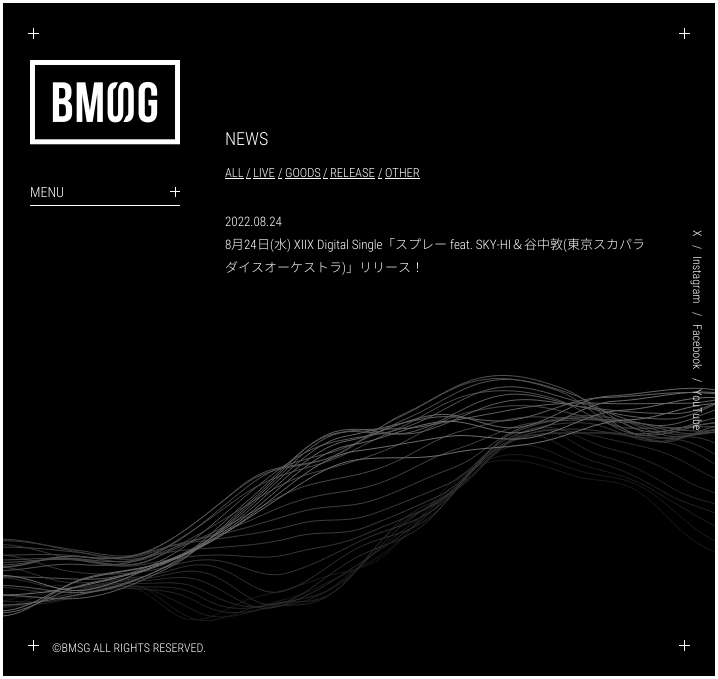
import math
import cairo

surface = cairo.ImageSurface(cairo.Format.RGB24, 718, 679)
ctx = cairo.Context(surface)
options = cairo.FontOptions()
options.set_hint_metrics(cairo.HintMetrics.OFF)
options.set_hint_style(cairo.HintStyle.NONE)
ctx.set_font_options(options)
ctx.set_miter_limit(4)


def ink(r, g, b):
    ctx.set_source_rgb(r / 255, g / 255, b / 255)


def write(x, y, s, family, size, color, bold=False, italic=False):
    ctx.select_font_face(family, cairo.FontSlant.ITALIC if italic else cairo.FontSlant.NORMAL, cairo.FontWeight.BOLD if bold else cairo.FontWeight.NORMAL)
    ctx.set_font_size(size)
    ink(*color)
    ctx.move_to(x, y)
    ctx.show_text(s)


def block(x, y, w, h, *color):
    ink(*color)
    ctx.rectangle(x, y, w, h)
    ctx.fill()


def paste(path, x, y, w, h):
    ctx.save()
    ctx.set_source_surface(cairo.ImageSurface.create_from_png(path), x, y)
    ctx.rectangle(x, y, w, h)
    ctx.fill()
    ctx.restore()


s1 = dict(family="Roboto Condensed Light", size=14, color=(255, 255, 255))
s2 = dict(family="Roboto Condensed Light", size=18, color=(255, 255, 255))
s3 = dict(family="Roboto Condensed Light", size=12.5, color=(255, 255, 255))
s4 = dict(family="Roboto Condensed Light", size=13, color=(255, 255, 255))
s5 = dict(family="Noto Sans JP Light", size=13, color=(255, 255, 255))
s6 = dict(family="Roboto Condensed Light", size=12, color=(255, 255, 255))

ink(0, 0, 0)
ctx.paint()
paste("pic2.png", 3, 375, 712, 246)
ctx.rectangle(1.5, 1.5, 715, 676)
ink(255, 255, 255)
ctx.set_line_width(3)
ctx.stroke()
block(33, 28, 1, 11, 255, 255, 255)
block(28, 33, 11, 1, 255, 255, 255)
block(684, 28, 1, 11, 255, 255, 255)
block(679, 33, 11, 1, 255, 255, 255)
block(33, 640, 1, 11, 255, 255, 255)
block(28, 645, 11, 1, 255, 255, 255)
block(684, 640, 1, 11, 255, 255, 255)
block(679, 645, 11, 1, 255, 255, 255)
paste("pic1.png", 30, 60, 150, 85)
block(30, 205, 150, 1, 255, 255, 255)
write(30, 197, "MENU", **s1)
block(175, 187, 1, 10, 255, 255, 255)
block(170, 191, 10, 1, 255, 255, 255)
write(225, 145, "NEWS", **s2)
write(225, 177, "ALL", **s3)
block(225, 178, 19, 1, 255, 255, 255)
write(246, 177, "/", **s3)
block(246, 178, 5, 1, 255, 255, 255)
write(253, 177, "LIVE", **s3)
block(253, 178, 22, 1, 255, 255, 255)
write(278, 177, "/", **s3)
block(278, 178, 4, 1, 255, 255, 255)
write(285, 177, "GOODS", **s3)
block(285, 178, 36, 1, 255, 255, 255)
write(323, 177, "/", **s3)
block(323, 178, 5, 1, 255, 255, 255)
write(330, 177, "RELEASE", **s3)
block(330, 178, 45, 1, 255, 255, 255)
write(378, 177, "/", **s3)
block(378, 178, 4, 1, 255, 255, 255)
write(385, 177, "OTHER", **s3)
block(385, 178, 35, 1, 255, 255, 255)
write(225, 226, "2022.08.24", **s4)
write(225, 249, "8", **s4)
write(231, 249, "月", **s5)
write(244, 249, "24", **s4)
write(257, 249, "日", **s5)
write(270, 249, "(", **s4)
write(274, 249, "水", **s5)
write(287, 249, ") XIIX Digital Single", **s4)
write(382, 249, "「スプレー", **s5)
write(450, 249, "feat. SKY-HI", **s4)
write(511, 249, "＆谷中敦", **s5)
write(563, 249, "(", **s4)
write(567, 249, "東京スカパラ", **s5)
write(225, 272, "ダイスオーケストラ", **s5)
write(342, 272, ")", **s4)
write(346, 272, "」リリース！", **s5)
ctx.save()
ctx.translate(693, 230)
ctx.rotate(90 * math.pi / 180)
write(0, 0, "X", **s6)
ctx.restore()
ctx.save()
ctx.translate(693, 245)
ctx.rotate(90 * math.pi / 180)
write(0, 0, "/", **s6)
ctx.restore()
ctx.save()
ctx.translate(693, 256)
ctx.rotate(90 * math.pi / 180)
write(0, 0, "Instagram", **s6)
ctx.restore()
ctx.save()
ctx.translate(693, 312)
ctx.rotate(90 * math.pi / 180)
write(0, 0, "/", **s6)
ctx.restore()
ctx.save()
ctx.translate(693, 324)
ctx.rotate(90 * math.pi / 180)
write(0, 0, "Facebook", **s6)
ctx.restore()
ctx.save()
ctx.translate(693, 378)
ctx.rotate(90 * math.pi / 180)
write(0, 0, "/", **s6)
ctx.restore()
ctx.save()
ctx.translate(693, 389)
ctx.rotate(90 * math.pi / 180)
write(0, 0, "YouTube", **s6)
ctx.restore()
write(52, 652, "©BMSG ALL RIGHTS RESERVED.", **s6)
surface.write_to_png("screenshot.png")
